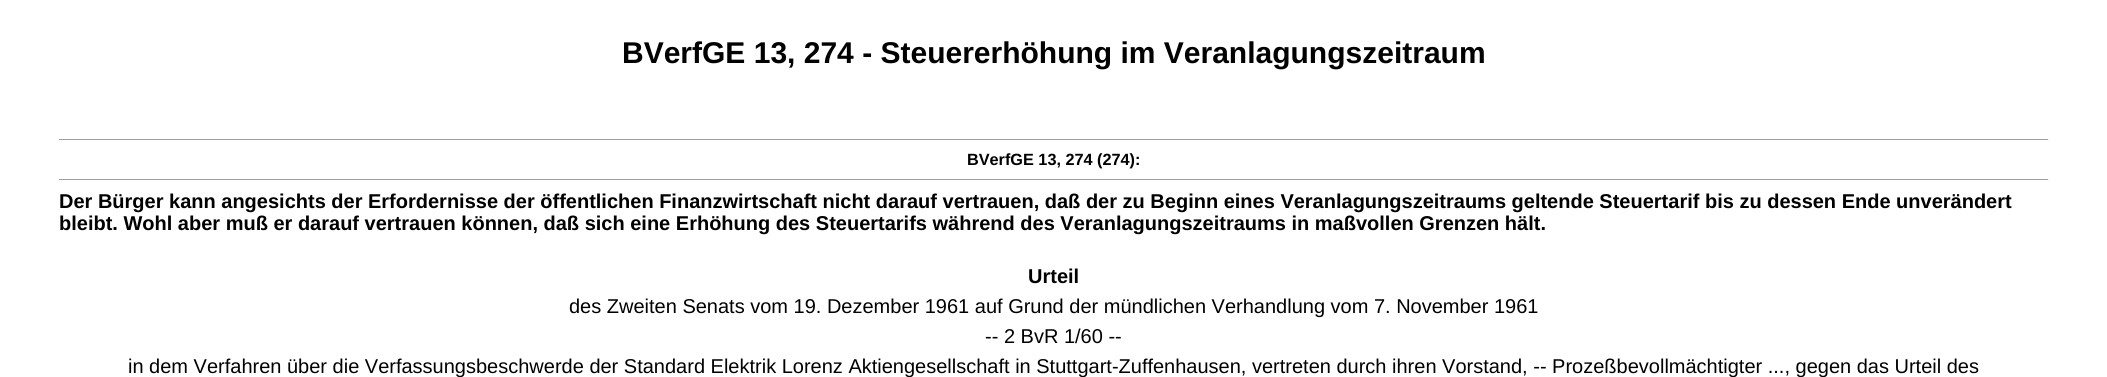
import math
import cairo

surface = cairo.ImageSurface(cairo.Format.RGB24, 2107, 377)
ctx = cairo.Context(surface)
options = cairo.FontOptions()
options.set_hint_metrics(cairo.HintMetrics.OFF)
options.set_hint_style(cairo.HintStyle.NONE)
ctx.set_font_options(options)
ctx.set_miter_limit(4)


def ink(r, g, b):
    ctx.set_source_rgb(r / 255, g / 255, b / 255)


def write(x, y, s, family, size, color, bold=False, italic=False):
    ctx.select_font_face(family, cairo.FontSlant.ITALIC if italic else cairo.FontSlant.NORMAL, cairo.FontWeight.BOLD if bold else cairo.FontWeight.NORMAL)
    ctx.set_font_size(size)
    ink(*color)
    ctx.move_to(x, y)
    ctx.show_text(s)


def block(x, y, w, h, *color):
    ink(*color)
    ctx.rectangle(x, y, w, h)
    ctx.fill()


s1 = dict(family="Liberation Sans", size=30, color=(0, 0, 0), bold=True)
s2 = dict(family="Liberation Sans", size=16.25, color=(0, 0, 0), bold=True)
s3 = dict(family="Liberation Sans", size=20, color=(0, 0, 0), bold=True)
s4 = dict(family="Liberation Sans", size=20, color=(0, 0, 0))

ink(255, 255, 255)
ctx.paint()
write(622, 63, "BVerfGE 13, 274 - Steuererhöhung im Veranlagungszeitraum", **s1)
block(59, 139, 1990, 1, 159, 159, 159)
block(2048, 139, 1, 1, 238, 238, 238)
write(967, 165, "BVerfGE 13, 274 (274):", **s2)
block(59, 179, 1990, 1, 159, 159, 159)
block(2048, 179, 1, 1, 238, 238, 238)
write(59, 208, "Der Bürger kann angesichts der Erfordernisse der öffentlichen Finanzwirtschaft nicht darauf vertrauen, daß der zu Beginn eines Veranlagungszeitraums geltende Steuertarif bis zu dessen Ende unverändert", **s3)
write(59, 230, "bleibt. Wohl aber muß er darauf vertrauen können, daß sich eine Erhöhung des Steuertarifs während des Veranlagungszeitraums in maßvollen Grenzen hält.", **s3)
write(1028, 283, "Urteil", **s3)
write(569, 313, "des Zweiten Senats vom 19. Dezember 1961 auf Grund der mündlichen Verhandlung vom 7. November 1961", **s4)
write(985, 343, "-- 2 BvR 1/60 --", **s4)
write(128, 373, "in dem Verfahren über die Verfassungsbeschwerde der Standard Elektrik Lorenz Aktiengesellschaft in Stuttgart-Zuffenhausen, vertreten durch ihren Vorstand, -- Prozeßbevollmächtigter ..., gegen das Urteil des", **s4)
surface.write_to_png("screenshot.png")
